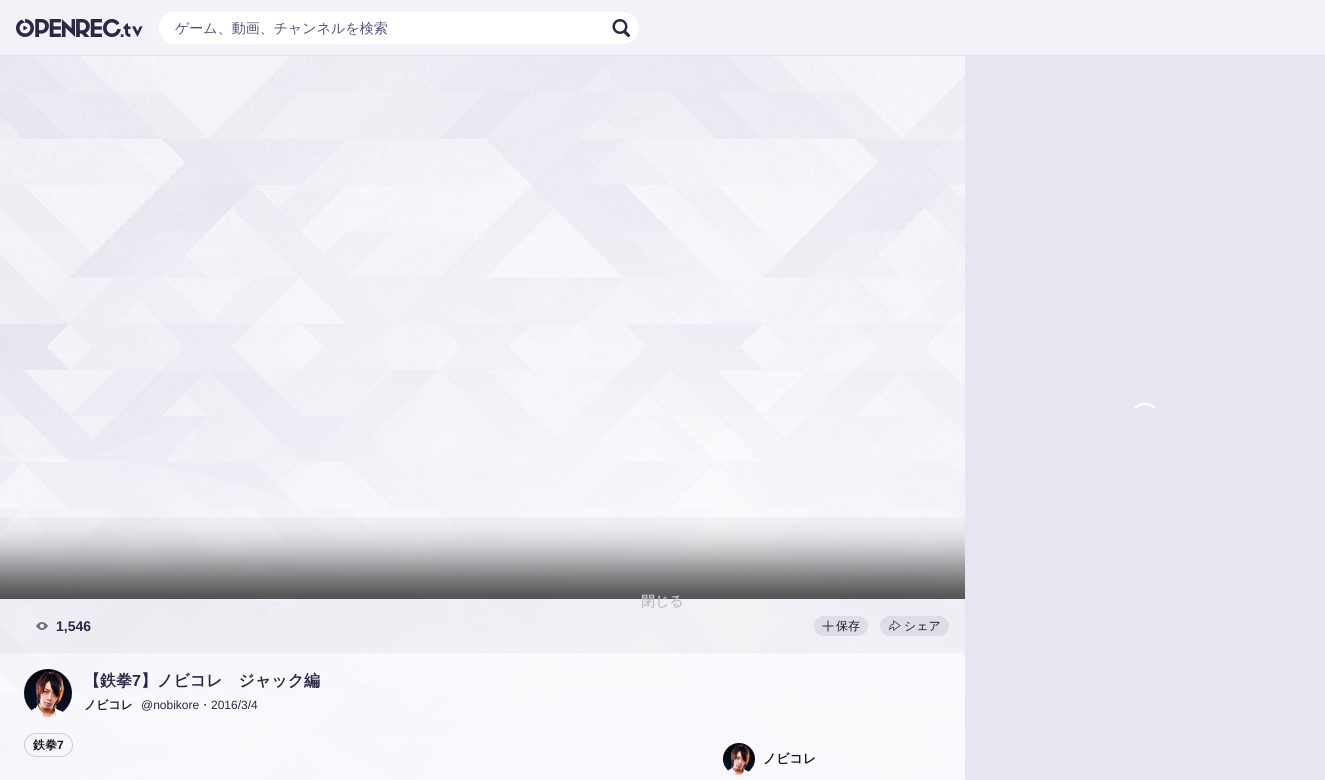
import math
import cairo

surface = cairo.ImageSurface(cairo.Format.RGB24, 1325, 780)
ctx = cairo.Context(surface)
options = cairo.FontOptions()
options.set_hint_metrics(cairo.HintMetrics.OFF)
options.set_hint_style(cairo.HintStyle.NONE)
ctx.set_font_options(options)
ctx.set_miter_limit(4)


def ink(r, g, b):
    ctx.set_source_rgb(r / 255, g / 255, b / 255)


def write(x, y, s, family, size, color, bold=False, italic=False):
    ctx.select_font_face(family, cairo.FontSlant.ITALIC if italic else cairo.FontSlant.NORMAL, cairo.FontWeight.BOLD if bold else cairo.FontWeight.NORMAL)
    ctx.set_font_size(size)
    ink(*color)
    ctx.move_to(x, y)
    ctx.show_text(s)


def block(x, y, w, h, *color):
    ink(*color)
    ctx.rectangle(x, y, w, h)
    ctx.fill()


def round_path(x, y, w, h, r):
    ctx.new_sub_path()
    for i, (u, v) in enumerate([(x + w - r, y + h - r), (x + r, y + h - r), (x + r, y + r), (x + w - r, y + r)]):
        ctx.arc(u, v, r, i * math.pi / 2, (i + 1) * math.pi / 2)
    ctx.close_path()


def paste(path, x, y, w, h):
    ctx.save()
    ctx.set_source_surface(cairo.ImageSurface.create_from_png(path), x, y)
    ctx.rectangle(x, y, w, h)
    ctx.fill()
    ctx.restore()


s1 = dict(family="WenQuanYi Zen Hei Medium", size=14, color=(87, 81, 122))
s2 = dict(family="Liberation Sans", size=14, color=(43, 39, 69), bold=True)
s3 = dict(family="WenQuanYi Zen Hei Medium", size=12, color=(22, 20, 34))
s4 = dict(family="WenQuanYi Zen Hei", size=16, color=(43, 39, 69), bold=True)
s5 = dict(family="Liberation Sans", size=16, color=(43, 39, 69), bold=True)
s6 = dict(family="WenQuanYi Zen Hei", size=12, color=(22, 20, 34), bold=True)
s7 = dict(family="Liberation Sans", size=12, color=(43, 39, 69))
s8 = dict(family="WenQuanYi Zen Hei Medium", size=12, color=(43, 39, 69))
s9 = dict(family="Liberation Sans", size=12, color=(22, 20, 34), bold=True)
s10 = dict(family="WenQuanYi Zen Hei", size=13, color=(22, 20, 34), bold=True)
s11 = dict(family="WenQuanYi Zen Hei", size=14, color=(193, 192, 197), bold=True)

ink(255, 255, 255)
ctx.paint()
block(0, 0, 1325, 55, 243, 242, 248)
block(0, 55, 1325, 1, 226, 224, 233)
paste("pic1.png", 16, 19, 127, 18)
ink(255, 255, 255)
ctx.new_path()
ctx.move_to(175, 12)
ctx.line_to(603, 12)
ctx.line_to(603, 44)
ctx.line_to(175, 44)
ctx.curve_to(166, 44, 159, 37, 159, 28)
ctx.curve_to(159, 19, 166, 12, 175, 12)
ctx.close_path()
ctx.fill()
write(175, 33, "ゲーム、動画、チャンネルを検索", **s1)
ink(255, 255, 255)
ctx.new_path()
ctx.move_to(603, 12)
ctx.line_to(623, 12)
ctx.curve_to(632, 12, 639, 19, 639, 28)
ctx.curve_to(639, 37, 632, 44, 623, 44)
ctx.line_to(603, 44)
ctx.close_path()
ctx.fill()
paste("pic2.png", 612, 19, 18, 18)
paste("pic3.png", 0, 56, 965, 724)
paste("pic4.png", 0, 517, 965, 82)
ctx.set_source_rgba(0.267, 0.247, 0.373, 0.04)
ctx.rectangle(0, 599, 965, 54)
ctx.fill()
paste("pic5.png", 36, 622, 12, 8)
write(56, 631, "1,546", **s2)
ctx.set_source_rgba(0.267, 0.247, 0.373, 0.1)
round_path(814, 616, 54, 20, 10)
ctx.fill()
paste("pic6.png", 822, 620, 12, 12)
write(836, 630, "保存", **s3)
ctx.set_source_rgba(0.267, 0.247, 0.373, 0.1)
round_path(880, 616, 69, 20, 10)
ctx.fill()
paste("pic7.png", 889, 620, 12, 11)
write(904, 630, "シェア", **s3)
block(965, 56, 360, 724, 231, 229, 240)
ctx.new_path()
ctx.move_to(1135, 408)
ctx.curve_to(1140.5, 402.5, 1149.5, 402.5, 1155, 408)
ctx.move_to(1135, 408)
ctx.curve_to(1140.5, 402.5, 1149.5, 402.5, 1155, 408)
ink(255, 255, 255)
ctx.stroke()
paste("pic8.png", 24, 669, 48, 48)
write(84, 686, "【鉄拳", **s4)
write(132, 686, "7", **s5)
write(141, 686, "】ノビコレ　ジャック編", **s4)
write(84, 709, "ノビコレ", **s6)
write(141, 709, "@nobikore", **s7)
write(199, 709, "・", **s8)
write(211, 709, "2016/3/4", **s7)
round_path(24.5, 733.5, 48, 23, 11.5)
ctx.set_source_rgba(0.557, 0.541, 0.667, 0.4)
ctx.set_line_width(1)
ctx.stroke()
write(33, 749, "鉄拳", **s6)
write(57, 749, "7", **s9)
paste("pic9.png", 723, 743, 32, 32)
write(763, 763, "ノビコレ", **s10)
write(641, 606, "閉じる", **s11)
surface.write_to_png("screenshot.png")
